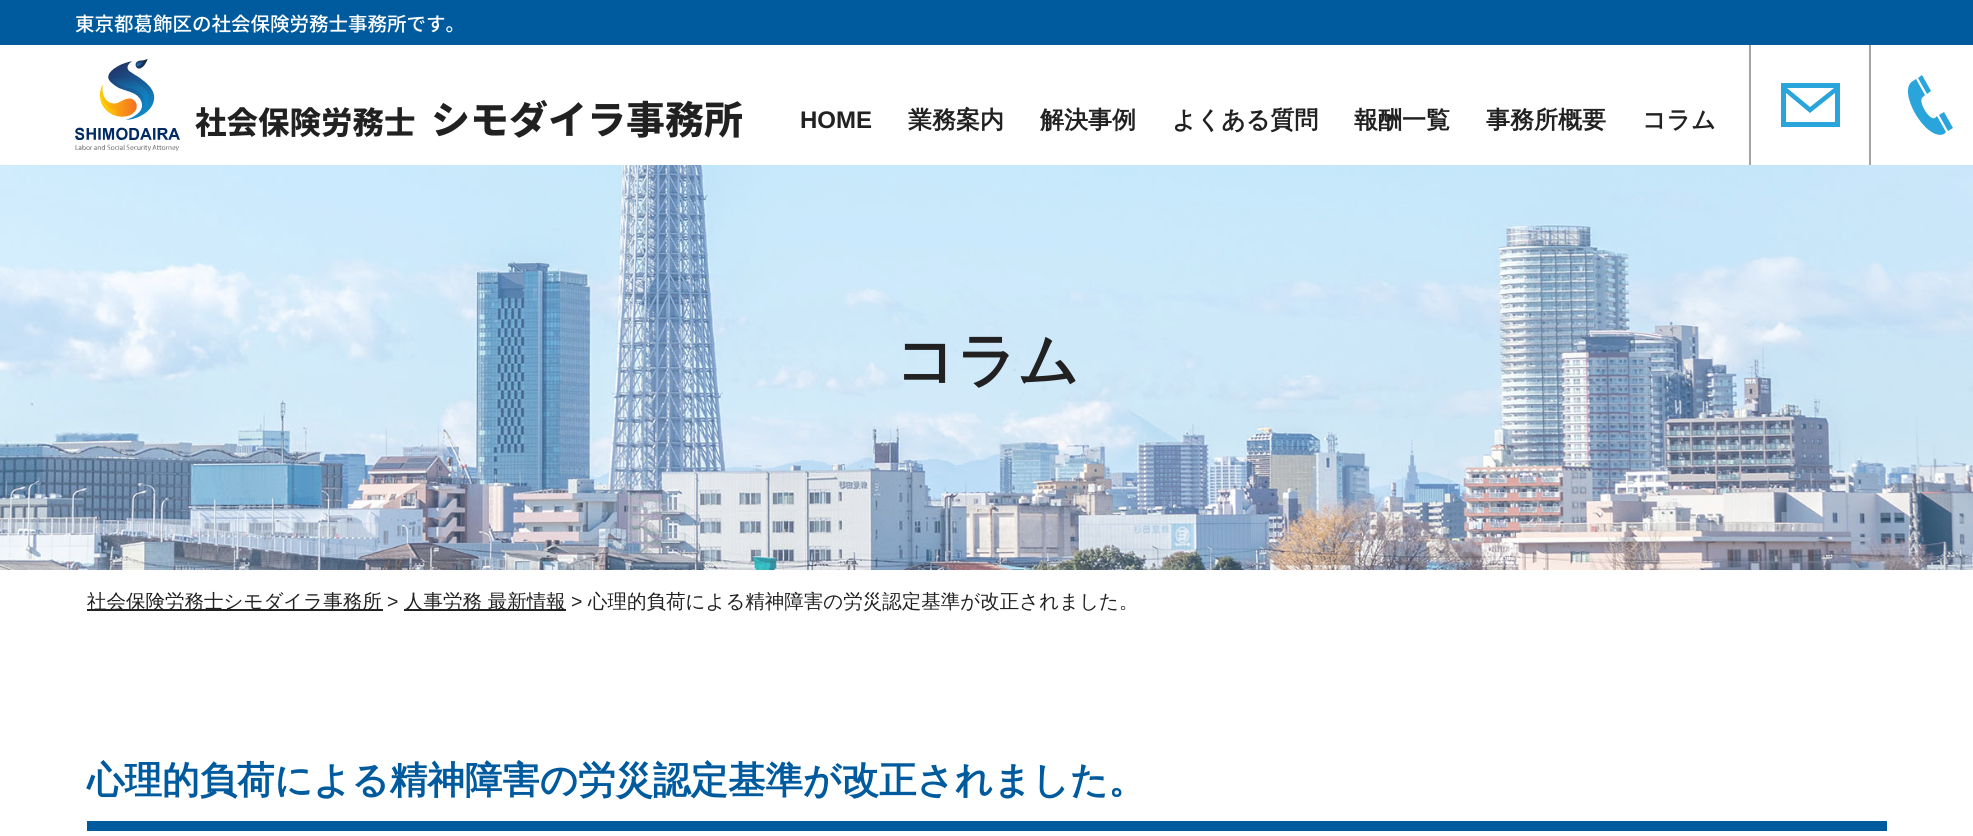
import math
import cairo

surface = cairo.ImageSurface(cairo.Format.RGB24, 1973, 836)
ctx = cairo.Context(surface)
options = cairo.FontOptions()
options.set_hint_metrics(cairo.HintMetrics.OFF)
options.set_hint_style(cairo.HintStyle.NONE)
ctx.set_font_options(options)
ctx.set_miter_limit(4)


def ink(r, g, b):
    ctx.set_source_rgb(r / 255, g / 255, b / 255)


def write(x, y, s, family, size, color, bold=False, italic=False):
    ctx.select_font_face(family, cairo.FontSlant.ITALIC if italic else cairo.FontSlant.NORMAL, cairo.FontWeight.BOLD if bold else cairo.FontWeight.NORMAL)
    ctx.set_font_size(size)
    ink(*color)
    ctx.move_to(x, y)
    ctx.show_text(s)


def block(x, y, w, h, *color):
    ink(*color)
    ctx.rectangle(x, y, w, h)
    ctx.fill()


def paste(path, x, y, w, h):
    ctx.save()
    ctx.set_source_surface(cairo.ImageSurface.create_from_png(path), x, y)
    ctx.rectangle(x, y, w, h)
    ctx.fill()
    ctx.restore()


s1 = dict(family="Noto Sans JP Medium", size=19.5, color=(255, 255, 255))
s2 = dict(family="Noto Sans JP ExtraBold", size=31.5, color=(33, 33, 33))
s3 = dict(family="Noto Sans JP ExtraBold", size=39, color=(33, 33, 33))
s4 = dict(family="Liberation Sans", size=24, color=(33, 33, 33), bold=True)
s5 = dict(family="WenQuanYi Zen Hei", size=24, color=(33, 33, 33), bold=True)
s6 = dict(family="WenQuanYi Zen Hei", size=60, color=(33, 33, 33), bold=True)
s7 = dict(family="WenQuanYi Zen Hei Medium", size=19.5, color=(33, 33, 33))
s8 = dict(family="Liberation Sans", size=19.5, color=(33, 33, 33))
s9 = dict(family="WenQuanYi Zen Hei", size=37.5, color=(0, 91, 158), bold=True)

ink(255, 255, 255)
ctx.paint()
block(0, 0, 1973, 45, 0, 91, 158)
write(75, 31, "東京都葛飾区の社会保険労務士事務所です。", **s1)
paste("pic1.png", 75, 59, 105, 93)
write(195, 134, "社会保険労務士", **s2)
write(431, 134, "シモダイラ事務所", **s3)
write(800, 128, "HOME", **s4)
write(908, 128, "業務案内", **s5)
write(1040, 128, "解決事例", **s5)
write(1172, 128, "よくある質問", **s5)
write(1354, 128, "報酬一覧", **s5)
write(1486, 128, "事務所概要", **s5)
write(1642, 128, "コラム", **s5)
block(1749, 45, 2, 120, 165, 165, 165)
ink(41, 165, 220)
ctx.new_path()
ctx.move_to(1781, 83)
ctx.line_to(1781, 127)
ctx.line_to(1840, 127)
ctx.line_to(1840, 83)
ctx.close_path()
ctx.move_to(1834, 88)
ctx.line_to(1810, 107)
ctx.line_to(1787, 88)
ctx.close_path()
ctx.move_to(1786, 122)
ctx.line_to(1786, 93)
ctx.line_to(1810, 113)
ctx.line_to(1835, 93)
ctx.line_to(1835, 122)
ctx.close_path()
ctx.fill()
block(1869, 45, 2, 120, 165, 165, 165)
ink(41, 165, 220)
ctx.new_path()
ctx.move_to(1946, 132)
ctx.line_to(1944, 134)
ctx.curve_to(1926, 142, 1896, 90, 1913, 81)
ctx.line_to(1916, 79)
ctx.line_to(1925, 95)
ctx.line_to(1923, 97)
ctx.curve_to(1917, 100, 1929, 121, 1935, 118)
ctx.line_to(1937, 116)
ctx.close_path()
ctx.move_to(1922, 75)
ctx.line_to(1918, 78)
ctx.line_to(1927, 94)
ctx.line_to(1931, 91)
ctx.close_path()
ctx.move_to(1944, 112)
ctx.line_to(1939, 115)
ctx.line_to(1948, 131)
ctx.line_to(1953, 128)
ctx.close_path()
ctx.fill()
paste("pic2.png", 0, 165, 1973, 405)
write(895, 381, "コラム", **s6)
block(87, 609, 296, 2, 33, 33, 33)
write(87, 608, "社会保険労務士シモダイラ事務所", **s7)
write(387, 608, ">", **s8)
block(404, 609, 162, 2, 33, 33, 33)
write(404, 608, "人事労務 最新情報", **s7)
write(571, 608, ">", **s8)
write(588, 608, "心理的負荷による精神障害の労災認定基準が改正されました。", **s7)
block(87, 821, 1800, 10, 0, 91, 158)
write(87, 793, "心理的負荷による精神障害の労災認定基準が改正されました。", **s9)
surface.write_to_png("screenshot.png")
